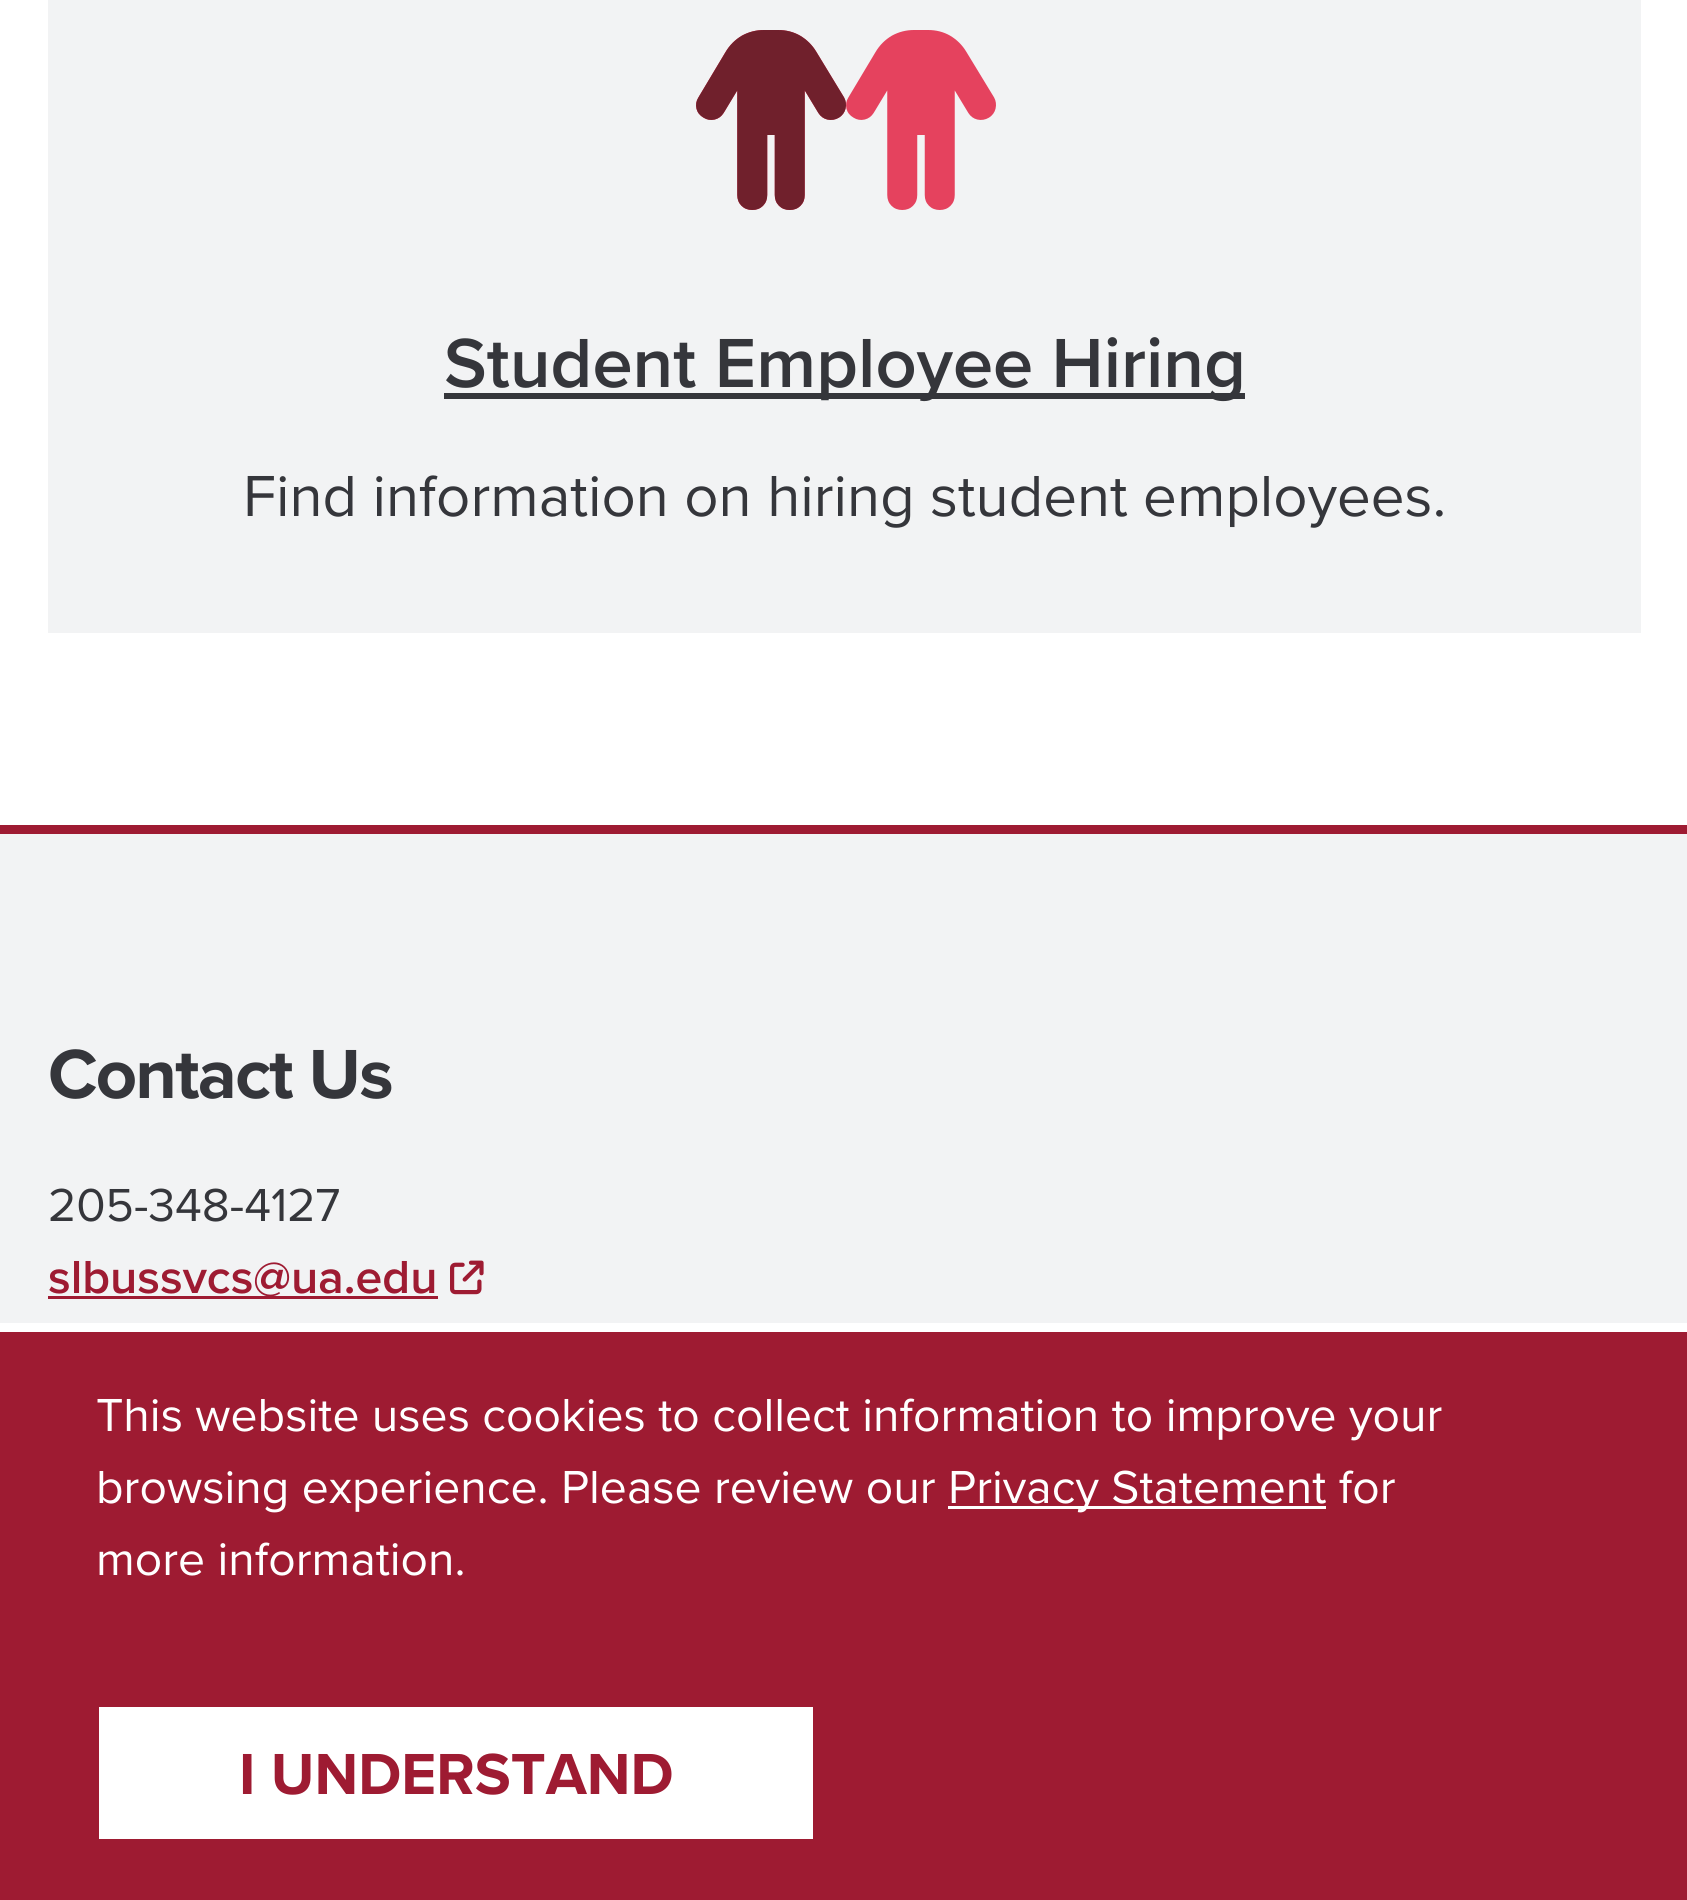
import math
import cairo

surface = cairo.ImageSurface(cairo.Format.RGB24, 1687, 1900)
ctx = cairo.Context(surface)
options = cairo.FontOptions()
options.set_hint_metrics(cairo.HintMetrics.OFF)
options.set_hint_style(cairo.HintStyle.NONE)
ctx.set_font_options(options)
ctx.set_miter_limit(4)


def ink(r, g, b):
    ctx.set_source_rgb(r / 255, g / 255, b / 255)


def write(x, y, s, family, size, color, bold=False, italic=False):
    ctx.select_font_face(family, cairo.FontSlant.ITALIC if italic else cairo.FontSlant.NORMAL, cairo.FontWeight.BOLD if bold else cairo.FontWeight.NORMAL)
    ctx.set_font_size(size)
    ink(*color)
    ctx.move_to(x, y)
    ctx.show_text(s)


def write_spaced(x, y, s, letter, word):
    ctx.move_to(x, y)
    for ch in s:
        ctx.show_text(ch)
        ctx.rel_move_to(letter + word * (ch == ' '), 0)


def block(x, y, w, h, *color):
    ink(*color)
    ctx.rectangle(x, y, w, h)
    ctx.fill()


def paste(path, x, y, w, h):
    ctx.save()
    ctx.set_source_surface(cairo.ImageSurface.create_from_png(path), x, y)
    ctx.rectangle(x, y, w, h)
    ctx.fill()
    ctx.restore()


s1 = dict(family="Proxima Nova SemiBold", size=72, color=(53, 54, 59))
s2 = dict(family="Proxima Nova", size=60, color=(53, 54, 59))
s3 = dict(family="Proxima Nova", size=48, color=(53, 54, 59))
s4 = dict(family="Proxima Nova SemiBold", size=48, color=(158, 27, 50))
s5 = dict(family="Proxima Nova", size=48, color=(255, 255, 255))
s6 = dict(family="Proxima Nova", size=60, color=(158, 27, 50), bold=True)

ink(255, 255, 255)
ctx.paint()
block(48, 0, 1593, 633, 242, 243, 244)
paste("pic1.png", 696, 30, 300, 180)
paste("pic2.png", 696, 30, 150, 180)
block(444, 393, 801, 6, 53, 54, 59)
write(444, 387, "Student Employee Hiring", **s1)
write(243, 516, "Find information on hiring student employees.", **s2)
block(0, 834, 1687, 489, 242, 243, 244)
block(0, 825, 1687, 9, 158, 27, 50)
ctx.select_font_face("Proxima Nova", cairo.FontSlant.NORMAL, cairo.FontWeight.BOLD)
ctx.set_font_size(72)
ink(53, 54, 59)
write_spaced(48, 1098, "Contact Us", -1.75, 0)
write(48, 1221, "205-348-4127", **s3)
block(48, 1296, 390, 3, 158, 27, 50)
write(48, 1293, "slbussvcs@ua.edu", **s4)
paste("pic3.png", 450, 1260, 34, 35)
block(0, 1332, 1687, 568, 158, 27, 50)
write(96, 1431, "This website uses cookies to collect information to improve your", **s5)
write(96, 1503, "browsing experience. Please review our", **s5)
block(948, 1506, 378, 3, 255, 255, 255)
write(948, 1503, "Privacy Statement for", **s5)
write(96, 1575, "more information.", **s5)
block(99, 1707, 714, 132, 255, 255, 255)
write(239, 1794, "I UNDERSTAND", **s6)
surface.write_to_png("screenshot.png")
